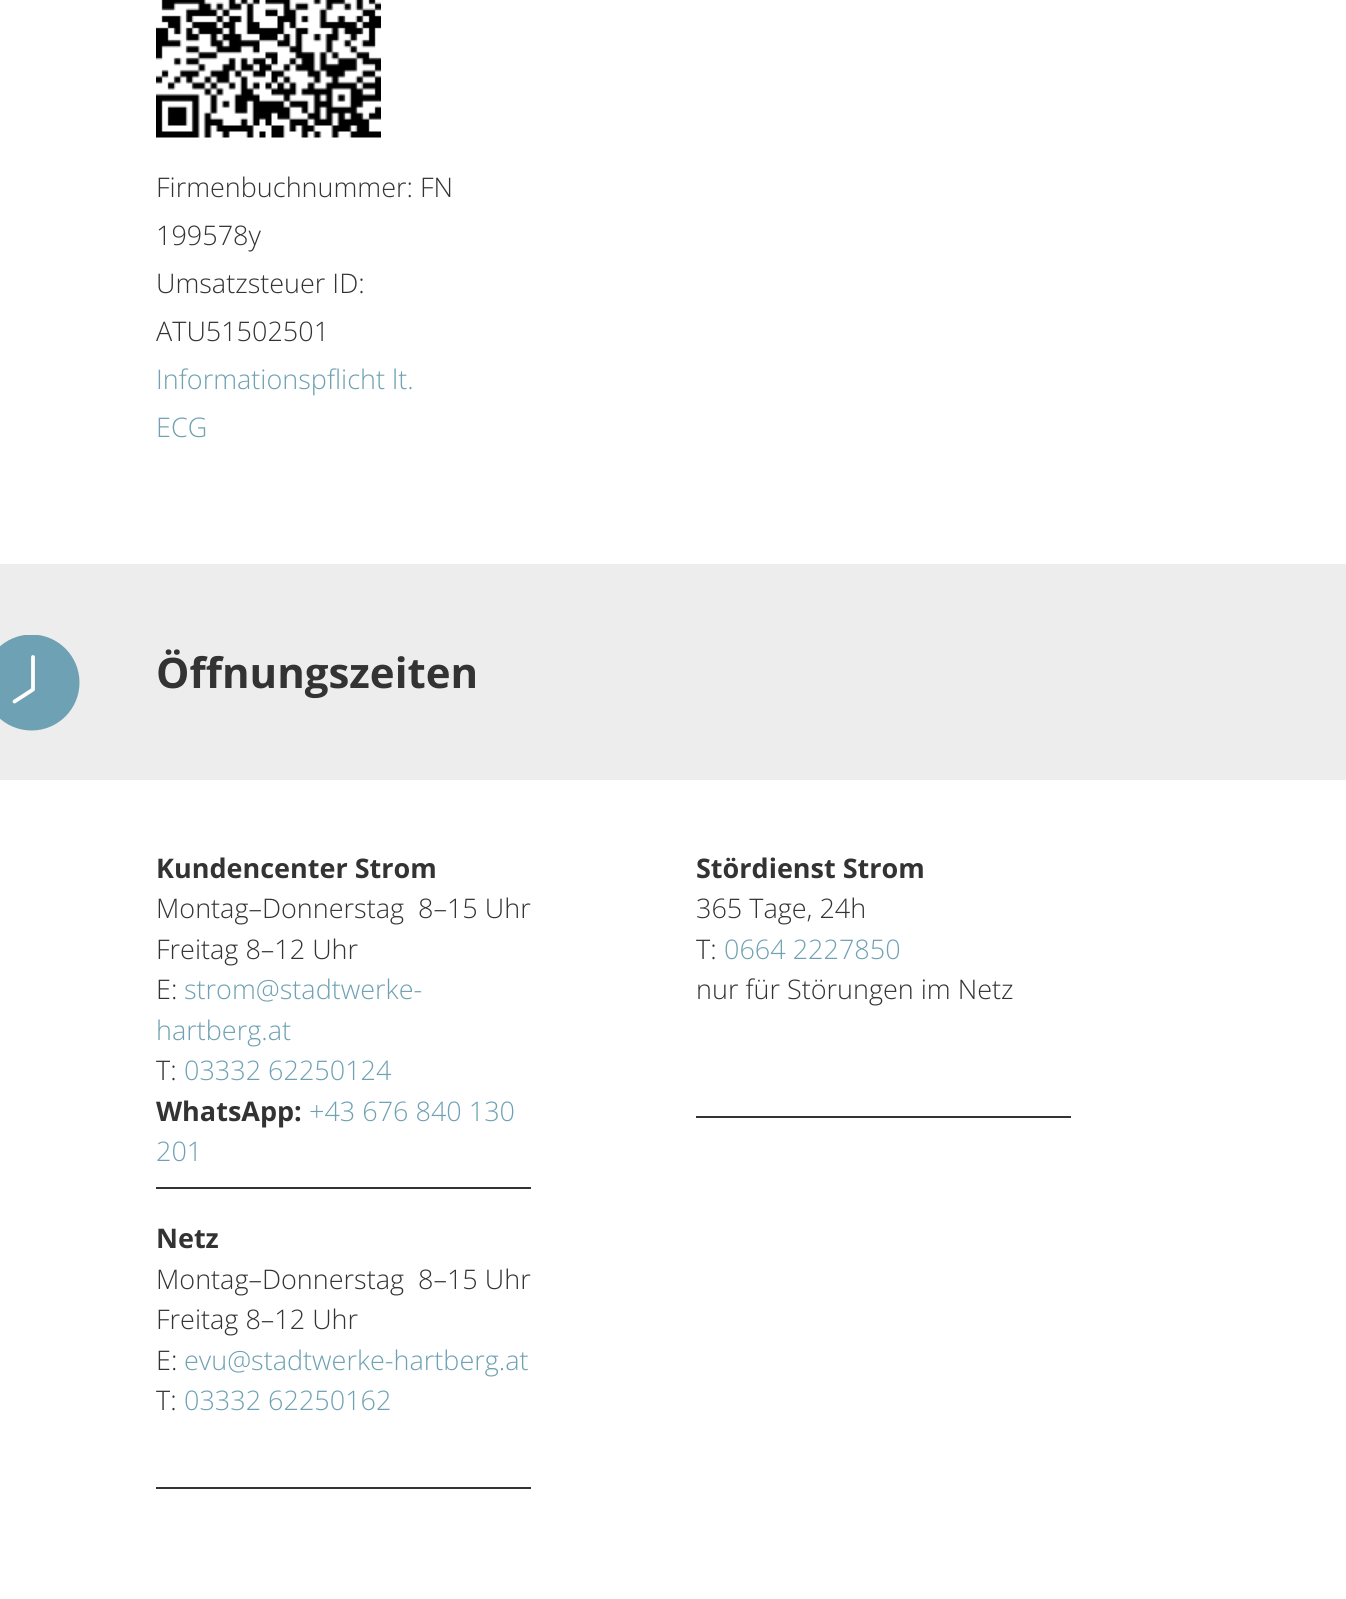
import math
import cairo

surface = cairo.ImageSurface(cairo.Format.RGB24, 1346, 1599)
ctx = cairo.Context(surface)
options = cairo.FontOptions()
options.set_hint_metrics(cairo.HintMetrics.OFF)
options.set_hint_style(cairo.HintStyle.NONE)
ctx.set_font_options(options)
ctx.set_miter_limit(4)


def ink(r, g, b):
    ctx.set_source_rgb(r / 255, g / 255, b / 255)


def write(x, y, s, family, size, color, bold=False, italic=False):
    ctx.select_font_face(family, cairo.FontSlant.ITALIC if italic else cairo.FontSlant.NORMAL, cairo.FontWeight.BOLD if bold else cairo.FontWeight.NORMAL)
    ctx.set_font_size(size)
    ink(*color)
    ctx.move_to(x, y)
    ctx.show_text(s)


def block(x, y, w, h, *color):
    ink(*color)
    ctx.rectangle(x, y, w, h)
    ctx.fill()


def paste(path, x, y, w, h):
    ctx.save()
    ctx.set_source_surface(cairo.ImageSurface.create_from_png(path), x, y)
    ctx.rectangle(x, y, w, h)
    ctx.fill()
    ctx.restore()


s1 = dict(family="Open Sans Light", size=27, color=(51, 51, 51))
s2 = dict(family="Open Sans Light", size=27, color=(110, 161, 179))
s3 = dict(family="Open Sans", size=42, color=(51, 51, 51), bold=True)
s4 = dict(family="Open Sans", size=27, color=(51, 51, 51), bold=True)

ink(255, 255, 255)
ctx.paint()
paste("pic1.png", 156, 0, 225, 138)
write(156, 197, "Firmenbuchnummer: FN", **s1)
write(156, 245, "199578y", **s1)
write(156, 293, "Umsatzsteuer ID:", **s1)
write(156, 341, "ATU51502501", **s1)
write(156, 389, "Informationspflicht lt.", **s2)
write(156, 437, "ECG", **s2)
block(0, 564, 1346, 216, 237, 237, 237)
ctx.save()
ctx.rectangle(0, 635, 80, 96)
ctx.clip()
ink(110, 161, 179)
ctx.arc(31.5, 682.5, 48, 0, 2 * math.pi)
ctx.fill()
ctx.restore()
ctx.new_path()
ctx.move_to(33, 657)
ctx.line_to(33, 689.5)
ctx.line_to(14.5, 701.5)
ink(255, 255, 255)
ctx.set_line_width(3.8)
ctx.set_line_cap(cairo.LineCap.ROUND)
ctx.set_line_join(cairo.LineJoin.ROUND)
ctx.stroke()
write(156, 688, "Öffnungszeiten", **s3)
block(156, 1187, 375, 2, 51, 51, 51)
write(156, 878, "Kundencenter Strom", **s4)
write(156, 918, "Montag–Donnerstag  8–15 Uhr", **s1)
write(156, 959, "Freitag 8–12 Uhr", **s1)
write(156, 999, "E:", **s1)
write(184, 999, "strom@stadtwerke-", **s2)
write(156, 1040, "hartberg.at", **s2)
write(156, 1080, "T:", **s1)
write(184, 1080, "03332 62250124", **s2)
write(156, 1121, "WhatsApp:", **s4)
write(309, 1121, "+43 676 840 130", **s2)
write(156, 1161, "201", **s2)
block(696, 1116, 375, 2, 51, 51, 51)
write(696, 878, "Stördienst Strom", **s4)
write(696, 918, "365 Tage, 24h", **s1)
write(696, 959, "T:", **s1)
write(724, 959, "0664 2227850", **s2)
write(696, 999, "nur für Störungen im Netz", **s1)
block(156, 1487, 375, 2, 51, 51, 51)
write(156, 1248, "Netz", **s4)
write(156, 1289, "Montag–Donnerstag  8–15 Uhr", **s1)
write(156, 1329, "Freitag 8–12 Uhr", **s1)
write(156, 1370, "E:", **s1)
write(184, 1370, "evu@stadtwerke-hartberg.at", **s2)
write(156, 1410, "T:", **s1)
write(184, 1410, "03332 62250162", **s2)
surface.write_to_png("screenshot.png")
